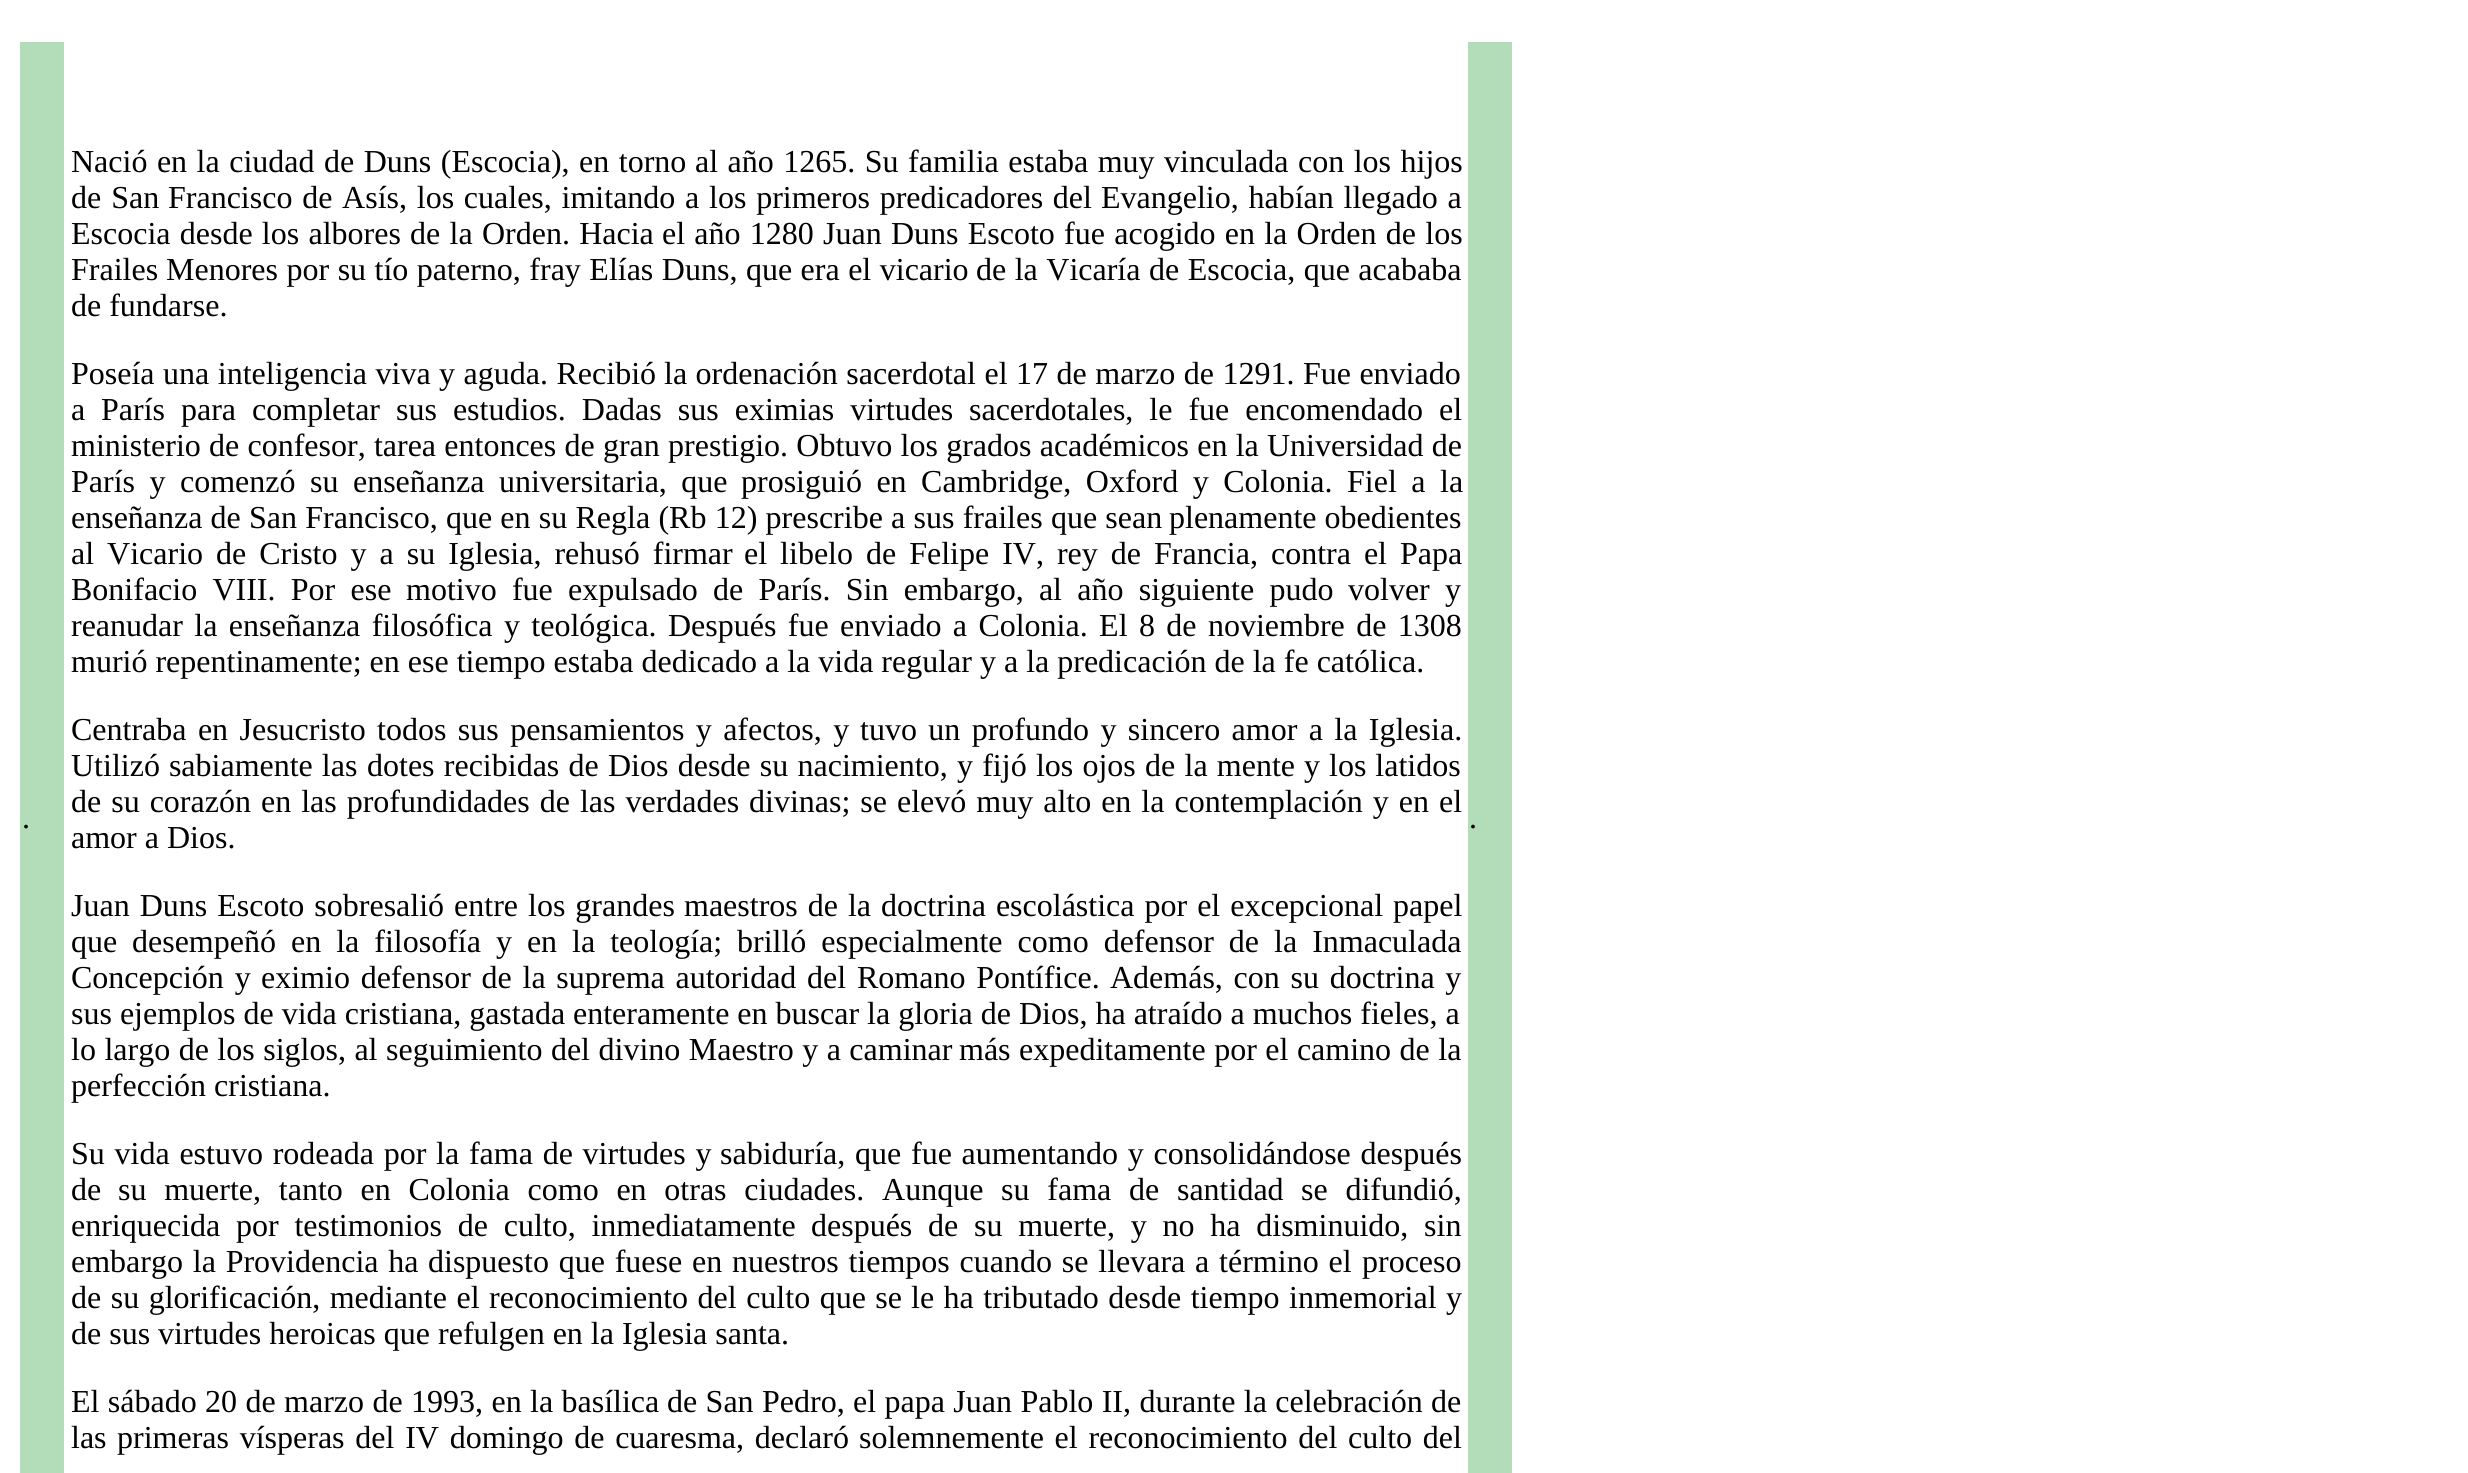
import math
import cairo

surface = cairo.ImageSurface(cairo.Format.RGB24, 2468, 1473)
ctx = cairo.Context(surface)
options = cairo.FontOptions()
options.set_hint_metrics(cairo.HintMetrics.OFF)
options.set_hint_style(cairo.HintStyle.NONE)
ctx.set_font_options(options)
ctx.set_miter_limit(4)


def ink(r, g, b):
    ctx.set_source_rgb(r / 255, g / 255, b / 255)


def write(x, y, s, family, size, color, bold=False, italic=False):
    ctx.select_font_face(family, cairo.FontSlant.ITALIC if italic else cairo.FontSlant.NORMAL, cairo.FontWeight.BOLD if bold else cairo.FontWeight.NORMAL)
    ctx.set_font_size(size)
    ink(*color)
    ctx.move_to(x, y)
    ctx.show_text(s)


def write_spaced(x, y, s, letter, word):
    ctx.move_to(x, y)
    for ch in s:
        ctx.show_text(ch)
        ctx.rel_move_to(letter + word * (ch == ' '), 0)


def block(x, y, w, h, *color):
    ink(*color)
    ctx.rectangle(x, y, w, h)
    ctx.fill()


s1 = dict(family="Liberation Serif", size=32, color=(0, 0, 0))

ink(255, 255, 255)
ctx.paint()
block(20, 42, 44, 1431, 179, 221, 184)
write(22, 828, ".", **s1)
write_spaced(71, 172, "Nació en la ciudad de Duns (Escocia), en torno", 0, 1.5)
write_spaced(695, 172, "al año 1265. Su familia estaba muy vinculada con los hijos", 0, 1.5)
write_spaced(71, 208, "de San", 0, 2)
write_spaced(168, 208, "Francisco de Asís, los cuales, imitando a los primeros predicadores del", 0, 1.75)
write_spaced(1101, 208, "Evangelio, habían llegado a", 0, 1.75)
write_spaced(71, 244, "Escocia desde los albores de la Orden. Hacia", 0, 1.25)
write_spaced(662, 244, "el año 1280 Juan Duns Escoto fue acogido en la Orden de los", 0, 1.25)
write(71, 280, "Frailes", **s1)
write_spaced(166, 280, "Menores por su tío paterno, fray Elías Duns, que era el vicario", 0, 0.5)
write_spaced(976, 280, "de la Vicaría de Escocia, que acababa", 0, 0.5)
write(71, 316, "de fundarse.", **s1)
write_spaced(71, 384, "Poseía una inteligencia viva y aguda. Recibió", 0, 0.5)
write_spaced(664, 384, "la ordenación sacerdotal el 17 de marzo de 1291. Fue enviado", 0, 0.5)
write(71, 420, "a", **s1)
write_spaced(101, 420, "París para completar sus estudios. Dadas sus eximias virtudes", 0, 8)
write_spaced(969, 420, "sacerdotales, le fue encomendado el", 0, 8)
write_spaced(71, 456, "ministerio de confesor, tarea entonces de gran prestigio. Obtuvo los grados académicos en la Universidad de", 0, 0.25)
write_spaced(71, 492, "París y comenzó su enseñanza universitaria, que", 0, 6.5)
write_spaced(741, 492, "prosiguió en Cambridge, Oxford y Colonia. Fiel a la", 0, 6.5)
write(71, 528, "enseñanza de", **s1)
write_spaced(249, 528, "San Francisco, que en su Regla (Rb 12) prescribe a sus frailes que sean", 0, 0.25)
write(1169, 528, "plenamente obedientes", **s1)
write_spaced(71, 564, "al Vicario de Cristo y a su Iglesia, rehusó firmar", 0, 5)
write_spaced(744, 564, "el libelo de Felipe IV, rey de Francia, contra el Papa", 0, 5)
write_spaced(71, 600, "Bonifacio VIII. Por ese", 0, 7.25)
write_spaced(406, 600, "motivo fue expulsado de París. Sin embargo, al año siguiente pudo", 0, 7.25)
write_spaced(1348, 600, "volver y", 0, 7.25)
write_spaced(71, 636, "reanudar la enseñanza filosófica y teológica.", 0, 3.4)
write_spaced(668, 636, "Después fue enviado a Colonia. El 8 de noviembre de 1308", 0, 3.4)
write(71, 672, "murió repentinamente; en ese tiempo estaba dedicado a la vida regular y a la predicación de la fe católica.", **s1)
write_spaced(71, 740, "Centraba en Jesucristo todos sus pensamientos y afectos, y", 0, 3.4)
write_spaced(860, 740, "tuvo un profundo y sincero amor a la Iglesia.", 0, 3.4)
write_spaced(71, 776, "Utilizó sabiamente las", 0, 1)
write_spaced(367, 776, "dotes recibidas de Dios desde su nacimiento, y fijó los ojos de la mente", 0, 1.25)
write_spaced(1304, 776, "y los latidos", 0, 1)
write_spaced(71, 812, "de su corazón en las profundidades de las verdades", 0, 2)
write_spaced(749, 812, "divinas; se elevó muy alto en la contemplación y en el", 0, 2)
write(71, 848, "amor a Dios.", **s1)
write_spaced(71, 916, "Juan Duns Escoto sobresalió entre los grandes", 0, 2)
write_spaced(684, 916, "maestros de la doctrina escolástica por el excepcional papel", 0, 2)
write(71, 952, "que", **s1)
write_spaced(132, 952, "desempeñó en la filosofía y en la teología;", 0, 7)
write_spaced(737, 952, "brilló especialmente como defensor de la Inmaculada", 0, 7)
write_spaced(71, 988, "Concepción y", 0, 3)
write_spaced(261, 988, "eximio defensor de la suprema autoridad del Romano Pontífice.", 0, 2.75)
write_spaced(1110, 988, "Además, con su doctrina y", 0, 2.75)
write(71, 1024, "sus ejemplos de vida cristiana, gastada", **s1)
write(573, 1024, "enteramente en buscar la gloria de Dios, ha atraído a muchos fieles, a", **s1)
write_spaced(71, 1060, "lo largo de los siglos, al seguimiento del divino Maestro y a caminar", 0, 0.5)
write_spaced(959, 1060, "más expeditamente por el camino de la", 0, 0.5)
write(71, 1096, "perfección cristiana.", **s1)
write_spaced(71, 1164, "Su vida estuvo rodeada por la fama de virtudes y", 0, 1.75)
write_spaced(720, 1164, "sabiduría, que fue aumentando y consolidándose después", 0, 1.75)
write(71, 1200, "de", **s1)
write_spaced(118, 1200, "su muerte, tanto en Colonia como en otras ciudades. Aunque su fama de santidad", 0, 9.75)
write_spaced(1301, 1200, "se difundió,", 0, 9.75)
write_spaced(71, 1236, "enriquecida por testimonios de culto, inmediatamente", 0, 7.75)
write_spaced(811, 1236, "después de su muerte, y no ha disminuido, sin", 0, 7.75)
write_spaced(71, 1272, "embargo la Providencia ha", 0, 1.8)
write_spaced(428, 1272, "dispuesto que fuese en nuestros tiempos cuando se llevara a término el", 0, 1.8)
write(1362, 1272, "proceso", **s1)
write_spaced(71, 1308, "de su glorificación, mediante el reconocimiento del culto que se", 0, 1.5)
write_spaced(911, 1308, "le ha tributado desde tiempo inmemorial y", 0, 1.5)
write(71, 1344, "de sus virtudes heroicas que refulgen en la Iglesia santa.", **s1)
write_spaced(71, 1412, "El sábado 20 de marzo de 1993, en la basílica", 0, 0.4)
write_spaced(667, 1412, "de San Pedro, el papa Juan Pablo II, durante la celebración de", 0, 0.4)
write(71, 1448, "las", **s1)
write_spaced(117, 1448, "primeras vísperas del IV domingo de cuaresma, declaró", 0, 2.75)
write_spaced(859, 1448, "solemnemente el reconocimiento del culto del", 0, 2.75)
block(1468, 42, 44, 1431, 179, 221, 184)
write(1469, 828, ".", **s1)
surface.write_to_png("screenshot.png")
